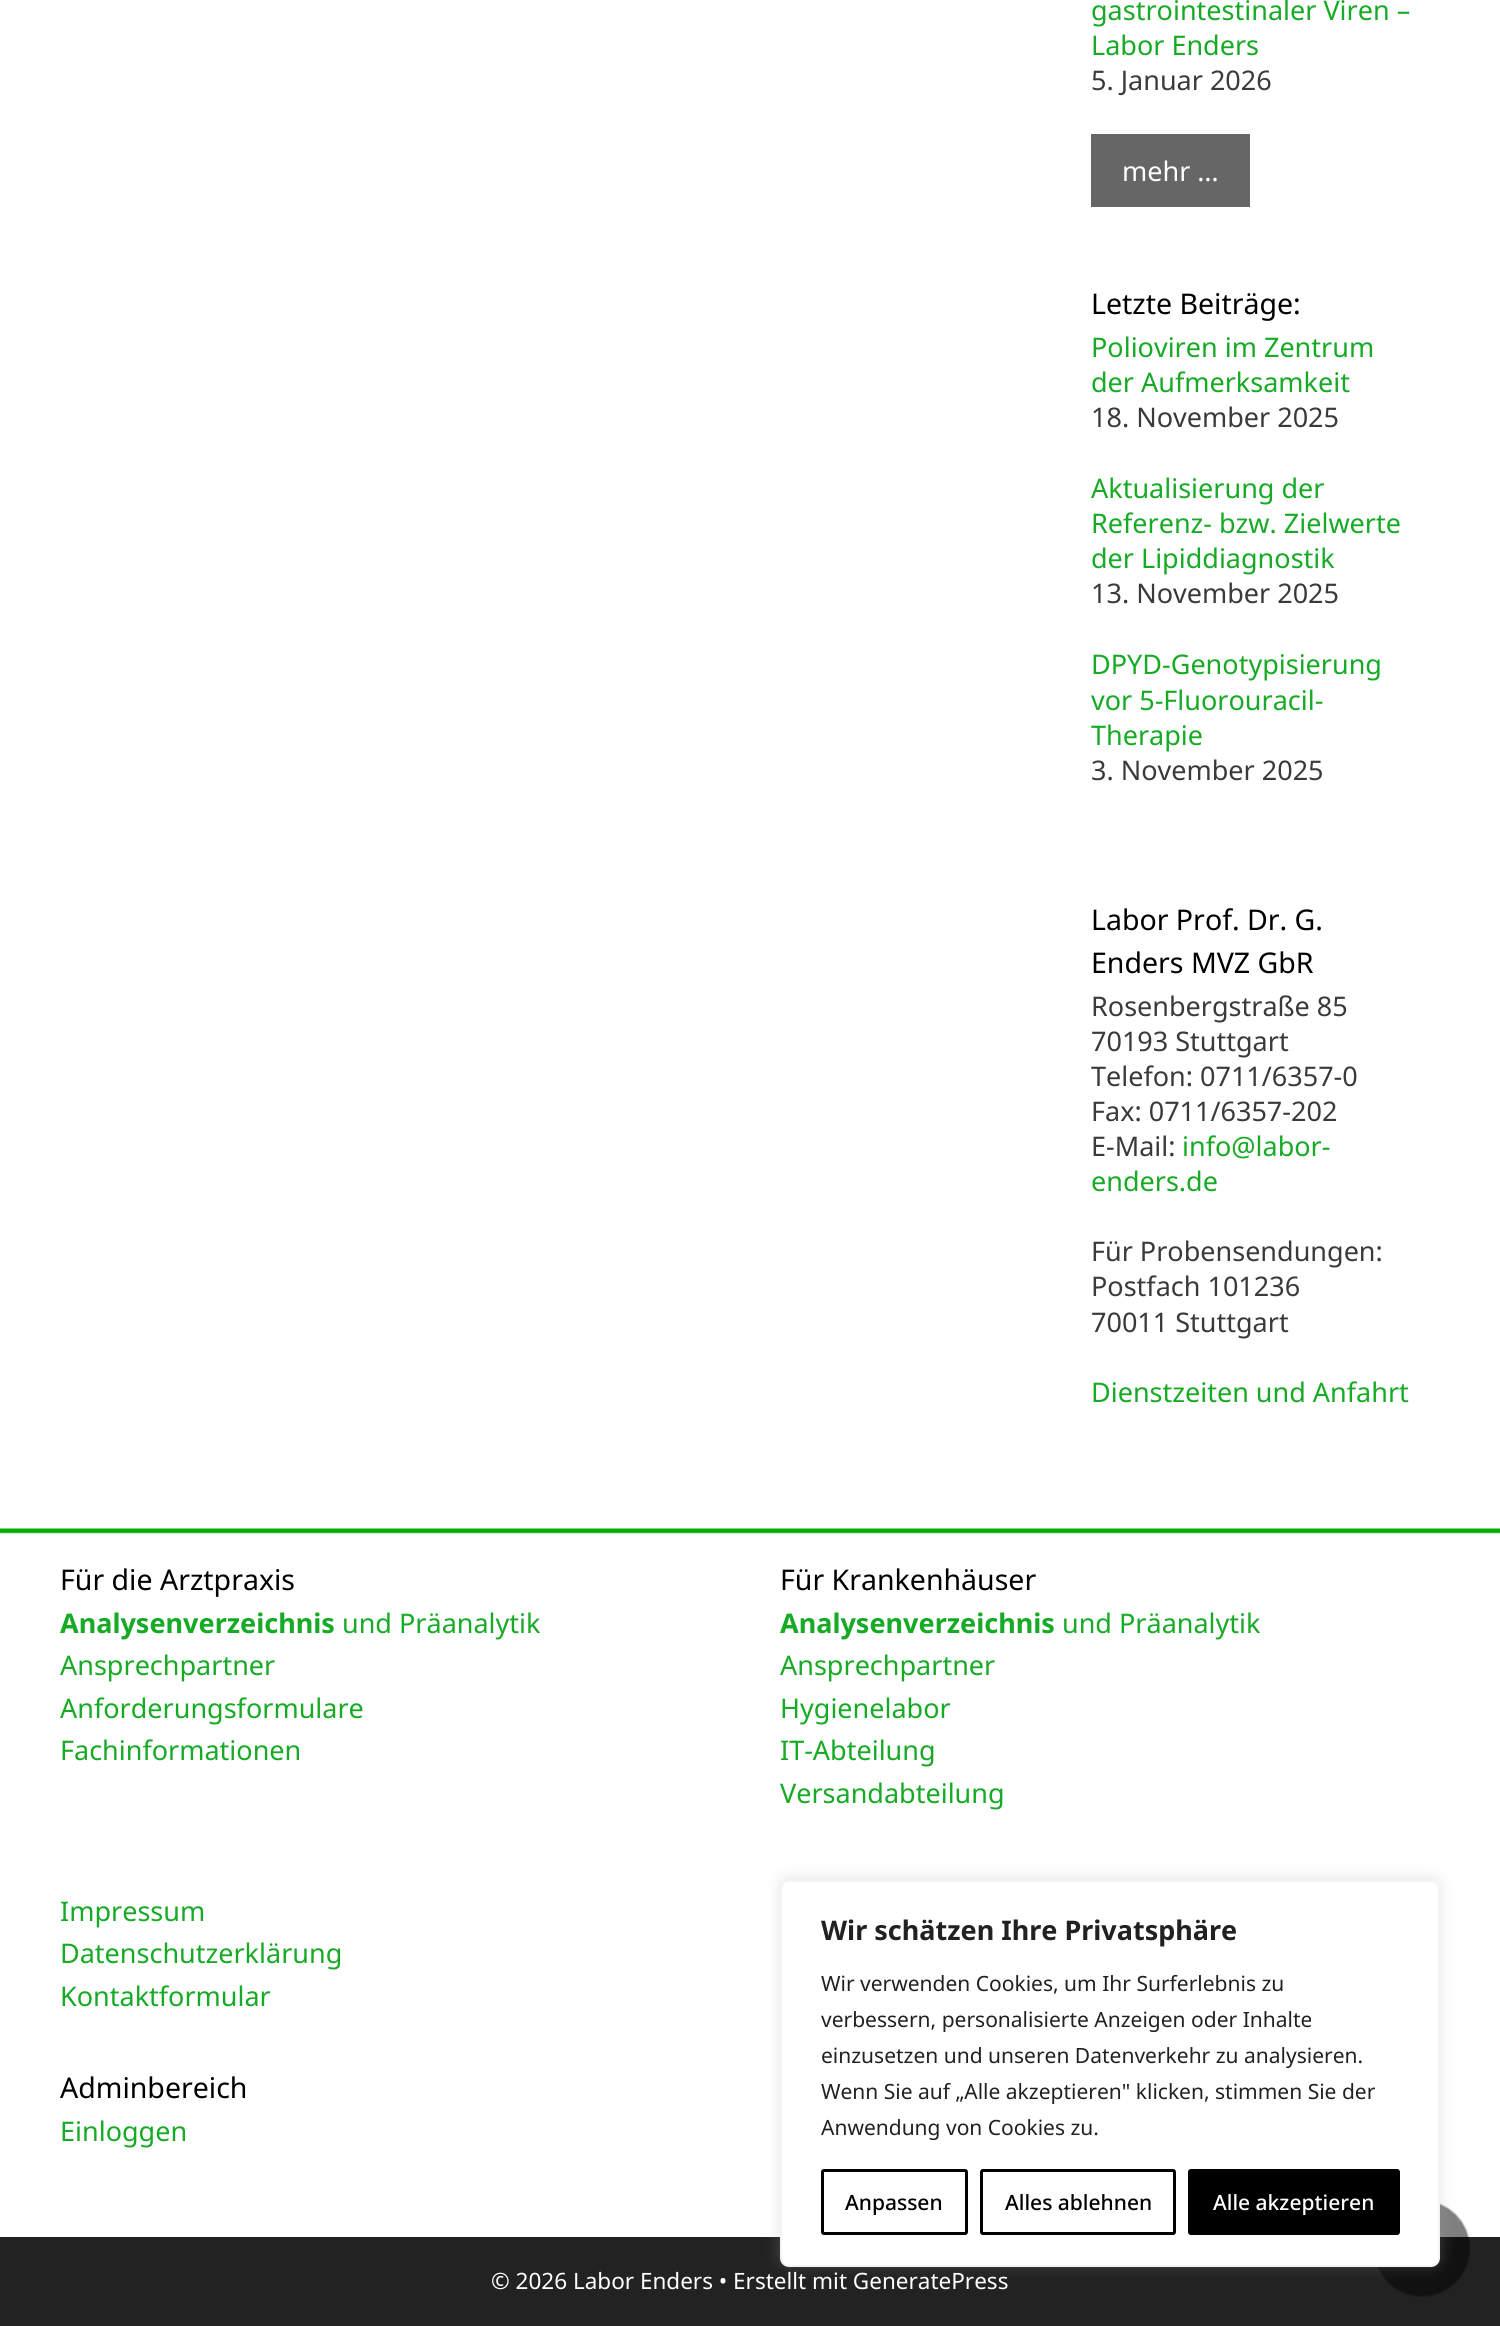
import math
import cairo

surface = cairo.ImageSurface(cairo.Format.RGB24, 1500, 2326)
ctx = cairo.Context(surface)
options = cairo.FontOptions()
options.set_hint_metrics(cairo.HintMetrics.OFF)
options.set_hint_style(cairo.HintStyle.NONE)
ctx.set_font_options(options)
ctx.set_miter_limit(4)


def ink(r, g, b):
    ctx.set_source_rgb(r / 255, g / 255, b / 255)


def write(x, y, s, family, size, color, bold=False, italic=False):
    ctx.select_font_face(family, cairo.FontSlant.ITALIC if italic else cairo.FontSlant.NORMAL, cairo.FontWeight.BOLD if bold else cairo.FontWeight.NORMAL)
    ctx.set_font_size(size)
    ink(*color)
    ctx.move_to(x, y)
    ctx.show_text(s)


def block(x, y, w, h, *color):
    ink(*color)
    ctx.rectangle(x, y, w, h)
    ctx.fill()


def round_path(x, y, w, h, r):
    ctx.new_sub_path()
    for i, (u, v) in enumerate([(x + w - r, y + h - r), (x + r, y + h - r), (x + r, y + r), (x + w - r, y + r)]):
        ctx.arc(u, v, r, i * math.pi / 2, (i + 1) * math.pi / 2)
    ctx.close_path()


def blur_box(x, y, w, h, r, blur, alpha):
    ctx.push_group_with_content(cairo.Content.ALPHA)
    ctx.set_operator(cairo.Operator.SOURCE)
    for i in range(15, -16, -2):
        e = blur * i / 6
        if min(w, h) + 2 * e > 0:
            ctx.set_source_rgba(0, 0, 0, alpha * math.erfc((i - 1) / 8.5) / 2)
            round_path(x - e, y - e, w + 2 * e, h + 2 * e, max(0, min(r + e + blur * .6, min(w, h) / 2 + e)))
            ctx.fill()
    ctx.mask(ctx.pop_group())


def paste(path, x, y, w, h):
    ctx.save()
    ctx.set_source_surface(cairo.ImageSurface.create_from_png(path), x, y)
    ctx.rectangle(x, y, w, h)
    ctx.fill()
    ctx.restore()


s1 = dict(family="Noto Sans", size=27, color=(22, 170, 37))
s2 = dict(family="Noto Sans", size=27, color=(58, 58, 58))
s3 = dict(family="Noto Sans", size=27, color=(255, 255, 255))
s4 = dict(family="Noto Sans", size=28.5, color=(0, 0, 0))
s5 = dict(family="Noto Sans", size=27, color=(22, 170, 37), bold=True)
s6 = dict(family="Noto Sans", size=22.5, color=(255, 255, 255))
s7 = dict(family="Noto Sans", size=27, color=(33, 33, 33), bold=True)
s8 = dict(family="Noto Sans", size=21, color=(33, 33, 33))
s9 = dict(family="Noto Sans Medium", size=21, color=(0, 0, 0))
s10 = dict(family="Noto Sans Medium", size=21, color=(255, 255, 255))

ink(255, 255, 255)
ctx.paint()
write(1091, 20, "gastrointestinaler Viren –", **s1)
write(1091, 55, "Labor Enders", **s1)
write(1091, 90, "5. Januar 2026", **s2)
block(1091, 134, 159, 73, 102, 102, 102)
write(1122, 181, "mehr …", **s3)
write(1091, 314, "Letzte Beiträge:", **s4)
write(1091, 357, "Polioviren im Zentrum", **s1)
write(1091, 392, "der Aufmerksamkeit", **s1)
write(1091, 427, "18. November 2025", **s2)
write(1091, 498, "Aktualisierung der", **s1)
write(1091, 533, "Referenz- bzw. Zielwerte", **s1)
write(1091, 568, "der Lipiddiagnostik", **s1)
write(1091, 603, "13. November 2025", **s2)
write(1091, 674, "DPYD-Genotypisierung", **s1)
write(1091, 710, "vor 5-Fluorouracil-", **s1)
ctx.save()
ctx.rectangle(1091, 330, 327, 494)
ctx.clip()
write(1091, 745, "Therapie", **s1)
ctx.restore()
write(1091, 780, "3. November 2025", **s2)
write(1091, 930, "Labor Prof. Dr. G.", **s4)
write(1091, 973, "Enders MVZ GbR", **s4)
write(1091, 1016, "Rosenbergstraße 85", **s2)
write(1091, 1051, "70193 Stuttgart", **s2)
write(1091, 1086, "Telefon: 0711/6357-0", **s2)
write(1091, 1121, "Fax: 0711/6357-202", **s2)
write(1091, 1156, "E-Mail:", **s2)
write(1182, 1156, "info@labor-", **s1)
write(1091, 1191, "enders.de", **s1)
write(1091, 1261, "Für Probensendungen:", **s2)
write(1091, 1296, "Postfach 101236", **s2)
write(1091, 1332, "70011 Stuttgart", **s2)
write(1091, 1402, "Dienstzeiten und Anfahrt", **s1)
paste("pic1.png", 0, 1528, 1500, 6)
write(60, 1590, "Für die Arztpraxis", **s4)
write(60, 1633, "Analysenverzeichnis", **s5)
write(342, 1633, "und Präanalytik", **s1)
write(60, 1675, "Ansprechpartner", **s1)
write(60, 1718, "Anforderungsformulare", **s1)
write(60, 1760, "Fachinformationen", **s1)
write(780, 1590, "Für Krankenhäuser", **s4)
write(780, 1633, "Analysenverzeichnis", **s5)
write(1062, 1633, "und Präanalytik", **s1)
write(780, 1675, "Ansprechpartner", **s1)
write(780, 1718, "Hygienelabor", **s1)
write(780, 1760, "IT-Abteilung", **s1)
write(780, 1803, "Versandabteilung", **s1)
write(60, 1921, "Impressum", **s1)
write(60, 1963, "Datenschutzerklärung", **s1)
write(60, 2006, "Kontaktformular", **s1)
write(60, 2098, "Adminbereich", **s4)
write(60, 2141, "Einloggen", **s1)
block(0, 2237, 1500, 89, 34, 34, 34)
write(491, 2289, "© 2026 Labor Enders • Erstellt mit GeneratePress", **s6)
paste("pic2.png", 1376, 2203, 94, 94)
ink(172, 171, 171)
blur_box(780, 1878, 660, 387, 9, 7.5, 0.3)
ink(255, 255, 255)
round_path(781, 1881, 658, 385, 8)
ctx.fill_preserve()
ink(244, 244, 244)
ctx.stroke()
write(821, 1940, "Wir schätzen Ihre Privatsphäre", **s7)
write(821, 1991, "Wir verwenden Cookies, um Ihr Surferlebnis zu", **s8)
write(821, 2027, "verbessern, personalisierte Anzeigen oder Inhalte", **s8)
write(821, 2063, "einzusetzen und unseren Datenverkehr zu analysieren.", **s8)
write(821, 2099, "Wenn Sie auf „Alle akzeptieren\" klicken, stimmen Sie der", **s8)
write(821, 2135, "Anwendung von Cookies zu.", **s8)
round_path(822.5, 2170.5, 144, 63, 1.5)
ink(0, 0, 0)
ctx.set_line_width(3)
ctx.stroke()
write(845, 2210, "Anpassen", **s9)
round_path(981.5, 2170.5, 193, 63, 1.5)
ctx.stroke()
write(1005, 2210, "Alles ablehnen", **s9)
round_path(1189.5, 2170.5, 209, 63, 1.5)
ctx.fill_preserve()
ctx.stroke()
write(1213, 2210, "Alle akzeptieren", **s10)
surface.write_to_png("screenshot.png")
